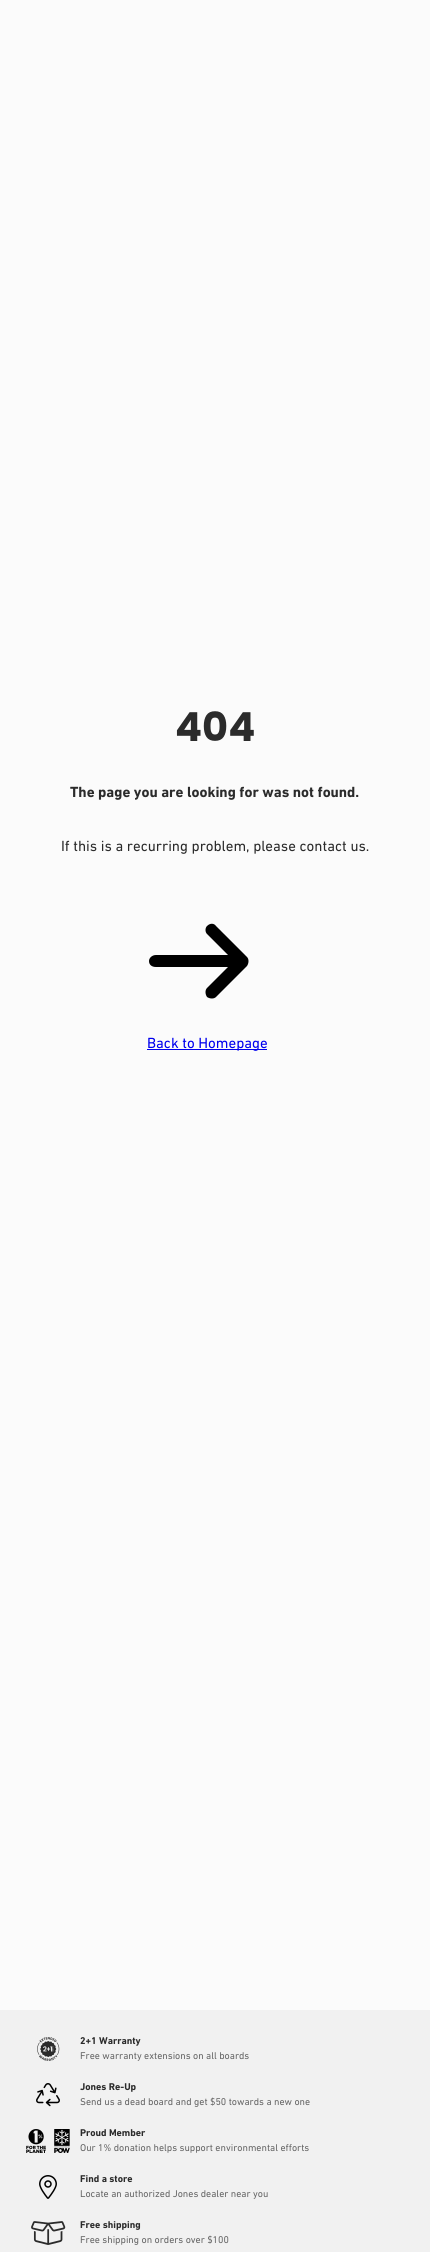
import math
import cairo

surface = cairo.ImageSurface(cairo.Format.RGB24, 430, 2252)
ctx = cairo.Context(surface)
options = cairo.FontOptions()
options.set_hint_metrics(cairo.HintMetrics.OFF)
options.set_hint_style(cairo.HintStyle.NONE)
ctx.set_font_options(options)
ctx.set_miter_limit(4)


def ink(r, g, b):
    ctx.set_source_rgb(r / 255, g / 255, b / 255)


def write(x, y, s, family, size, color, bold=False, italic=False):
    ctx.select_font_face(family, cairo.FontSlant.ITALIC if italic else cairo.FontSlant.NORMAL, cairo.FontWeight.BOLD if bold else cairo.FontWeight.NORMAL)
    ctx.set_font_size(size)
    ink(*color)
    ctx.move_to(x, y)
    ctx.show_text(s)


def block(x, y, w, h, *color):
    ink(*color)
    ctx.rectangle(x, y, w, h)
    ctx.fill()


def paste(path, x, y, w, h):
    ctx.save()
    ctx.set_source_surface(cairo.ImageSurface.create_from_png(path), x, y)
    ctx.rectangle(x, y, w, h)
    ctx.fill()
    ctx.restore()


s1 = dict(family="Poppins", size=40, color=(43, 43, 43), bold=True)
s2 = dict(family="DIN Next", size=15, color=(43, 43, 43), bold=True)
s3 = dict(family="DIN Next", size=15, color=(43, 43, 43))
s4 = dict(family="DIN Next", size=15, color=(0, 0, 238))
s5 = dict(family="DIN Next", size=10, color=(43, 43, 43), bold=True)
s6 = dict(family="DIN Next", size=10, color=(102, 102, 102))

ink(251, 251, 251)
ctx.paint()
write(175, 741, "404", **s1)
write(70, 797, "The page you are looking for was not found.", **s2)
write(61, 851, "If this is a recurring problem, please contact us.", **s3)
ink(0, 0, 0)
ctx.new_path()
ctx.move_to(247, 966)
ctx.curve_to(249, 963, 249, 959, 247, 957)
ctx.line_to(216, 926)
ctx.curve_to(214, 923, 210, 923, 207, 926)
ctx.curve_to(205, 928, 205, 932, 207, 934)
ctx.line_to(228, 955)
ctx.line_to(156, 955)
ctx.curve_to(152, 955, 149, 958, 149, 961)
ctx.curve_to(149, 965, 152, 967, 156, 967)
ctx.line_to(228, 967)
ctx.line_to(207, 988)
ctx.curve_to(205, 990, 205, 994, 207, 997)
ctx.curve_to(210, 999, 214, 999, 216, 997)
ctx.close_path()
ctx.fill()
block(147, 1049, 120, 1, 0, 0, 238)
write(147, 1048, "Back to Homepage", **s4)
block(0, 2010, 430, 242, 241, 241, 241)
paste("pic1.png", 37, 2037, 23, 24)
write(80, 2044, "2+1 Warranty", **s5)
write(80, 2059, "Free warranty extensions on all boards", **s6)
paste("pic2.png", 36, 2083, 24, 24)
write(80, 2090, "Jones Re-Up", **s5)
write(80, 2105, "Send us a dead board and get $50 towards a new one", **s6)
paste("pic3.png", 26, 2129, 44, 24)
write(80, 2136, "Proud Member", **s5)
write(80, 2151, "Our 1% donation helps support environmental efforts", **s6)
paste("pic4.png", 39, 2175, 18, 24)
write(80, 2182, "Find a store", **s5)
write(80, 2197, "Locate an authorized Jones dealer near you", **s6)
paste("pic5.png", 31, 2221, 35, 24)
write(80, 2228, "Free shipping", **s5)
write(80, 2243, "Free shipping on orders over $100", **s6)
surface.write_to_png("screenshot.png")
